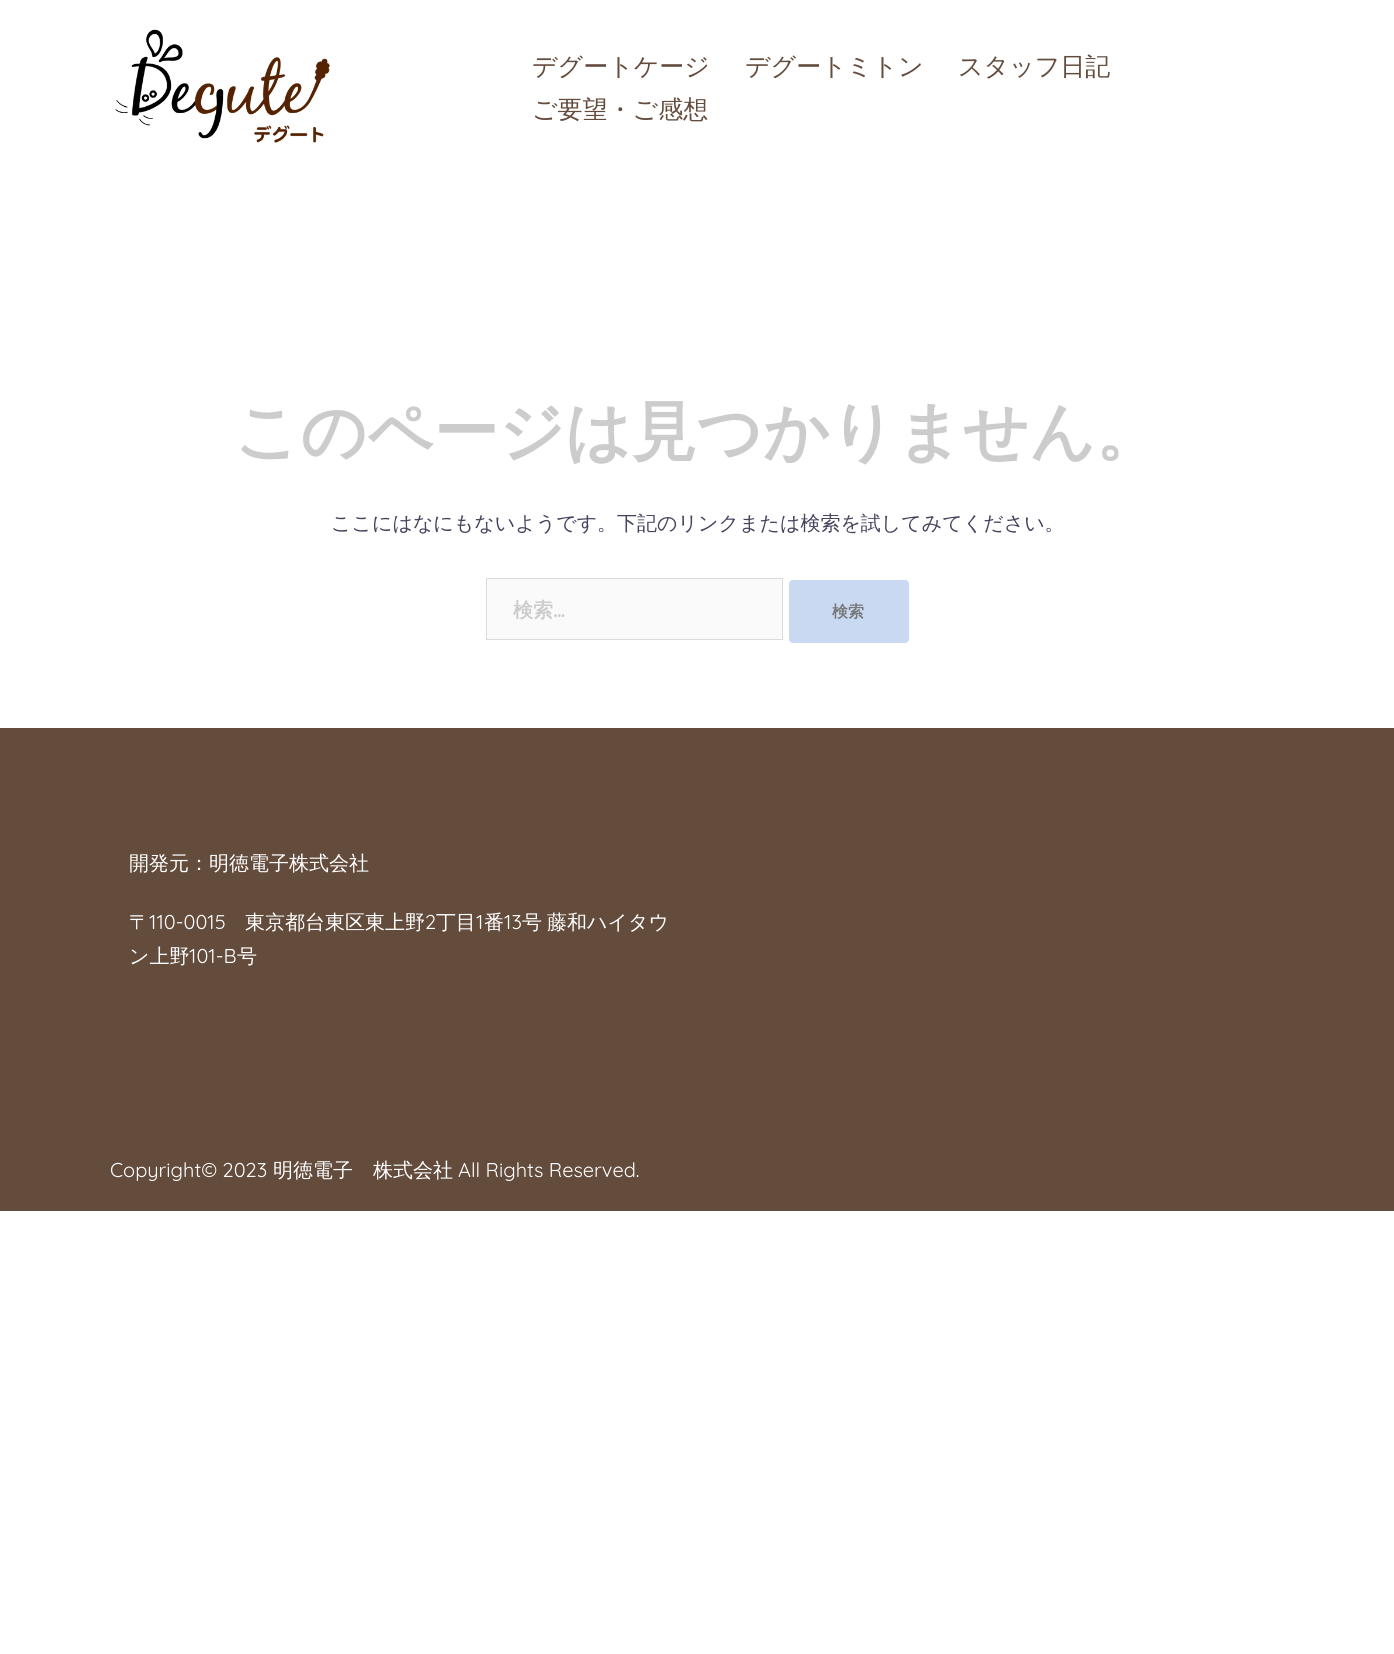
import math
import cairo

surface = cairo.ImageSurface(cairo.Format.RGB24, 1394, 1654)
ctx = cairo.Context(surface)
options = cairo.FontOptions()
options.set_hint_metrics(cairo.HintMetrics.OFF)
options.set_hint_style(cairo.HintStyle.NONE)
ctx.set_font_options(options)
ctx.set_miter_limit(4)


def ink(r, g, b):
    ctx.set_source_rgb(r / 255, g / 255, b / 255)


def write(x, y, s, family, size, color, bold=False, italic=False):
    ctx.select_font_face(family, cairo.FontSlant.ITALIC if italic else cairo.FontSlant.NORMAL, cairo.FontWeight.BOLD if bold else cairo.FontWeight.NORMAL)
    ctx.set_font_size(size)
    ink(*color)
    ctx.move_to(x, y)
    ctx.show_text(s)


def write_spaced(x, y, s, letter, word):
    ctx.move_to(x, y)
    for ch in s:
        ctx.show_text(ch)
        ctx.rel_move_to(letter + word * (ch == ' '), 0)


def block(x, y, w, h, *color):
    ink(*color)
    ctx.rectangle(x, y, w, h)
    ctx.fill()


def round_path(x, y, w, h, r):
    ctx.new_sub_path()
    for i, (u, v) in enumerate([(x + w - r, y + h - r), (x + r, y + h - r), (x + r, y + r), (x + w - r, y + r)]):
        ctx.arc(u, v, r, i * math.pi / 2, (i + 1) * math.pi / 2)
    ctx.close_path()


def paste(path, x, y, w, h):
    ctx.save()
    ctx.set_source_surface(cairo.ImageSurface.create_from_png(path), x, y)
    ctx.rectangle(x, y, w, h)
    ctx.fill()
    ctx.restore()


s1 = dict(family="WenQuanYi Zen Hei Medium", size=25, color=(100, 76, 61))
s2 = dict(family="WenQuanYi Zen Hei", size=65, color=(204, 204, 204), bold=True)
s3 = dict(family="WenQuanYi Zen Hei Medium", size=20, color=(71, 66, 93))
s4 = dict(family="WenQuanYi Zen Hei", size=20, color=(204, 204, 204), bold=True)
s5 = dict(family="Quicksand", size=20, color=(204, 204, 204), bold=True)
s6 = dict(family="WenQuanYi Zen Hei", size=16, color=(119, 119, 119), bold=True)
s7 = dict(family="WenQuanYi Zen Hei Medium", size=20, color=(255, 255, 255))
s8 = dict(family="Quicksand", size=20, color=(255, 255, 255))

ink(255, 255, 255)
ctx.paint()
paste("pic1.png", 115, 29, 215, 114)
write(532, 75, "デグートケージ", **s1)
write(745, 75, "デグートミトン", **s1)
write(958, 75, "スタッフ日記", **s1)
write(532, 118, "ご要望・ご感想", **s1)
write(234, 454, "このページは見つかりません。", **s2)
write(331, 530, "ここにはなにもないようです。下記のリンクまたは検索を試してみてください。", **s3)
ink(250, 250, 250)
ctx.rectangle(486.5, 578.5, 296, 61)
ctx.fill_preserve()
ink(219, 219, 219)
ctx.set_line_width(1)
ctx.stroke()
write(513, 617, "検索", **s4)
write(553, 617, "…", **s5)
ink(201, 217, 242)
round_path(789.5, 580.5, 119, 62, 3.5)
ctx.fill_preserve()
ctx.stroke()
write(832, 617, "検索", **s6)
block(0, 728, 1394, 483, 100, 76, 61)
write(129, 870, "開発元：明徳電子株式会社", **s7)
write(129, 929, "〒", **s7)
write(149, 929, "110-0015", **s8)
write(245, 929, "東京都台東区東上野", **s7)
write(425, 929, "2", **s8)
write(436, 929, "丁目", **s7)
write(476, 929, "1", **s8)
write(484, 929, "番", **s7)
write(504, 929, "13", **s8)
ctx.select_font_face("WenQuanYi Zen Hei Medium")
write_spaced(522, 929, "号 藤和ハイタウ", 0, -1)
write(129, 963, "ン上野", **s7)
write(189, 963, "101-B", **s8)
write(237, 963, "号", **s7)
write(110, 1177, "Copyright© 2023", **s8)
write(273, 1177, "明徳電子　株式会社", **s7)
write(458, 1177, "All Rights Reserved.", **s8)
surface.write_to_png("screenshot.png")
